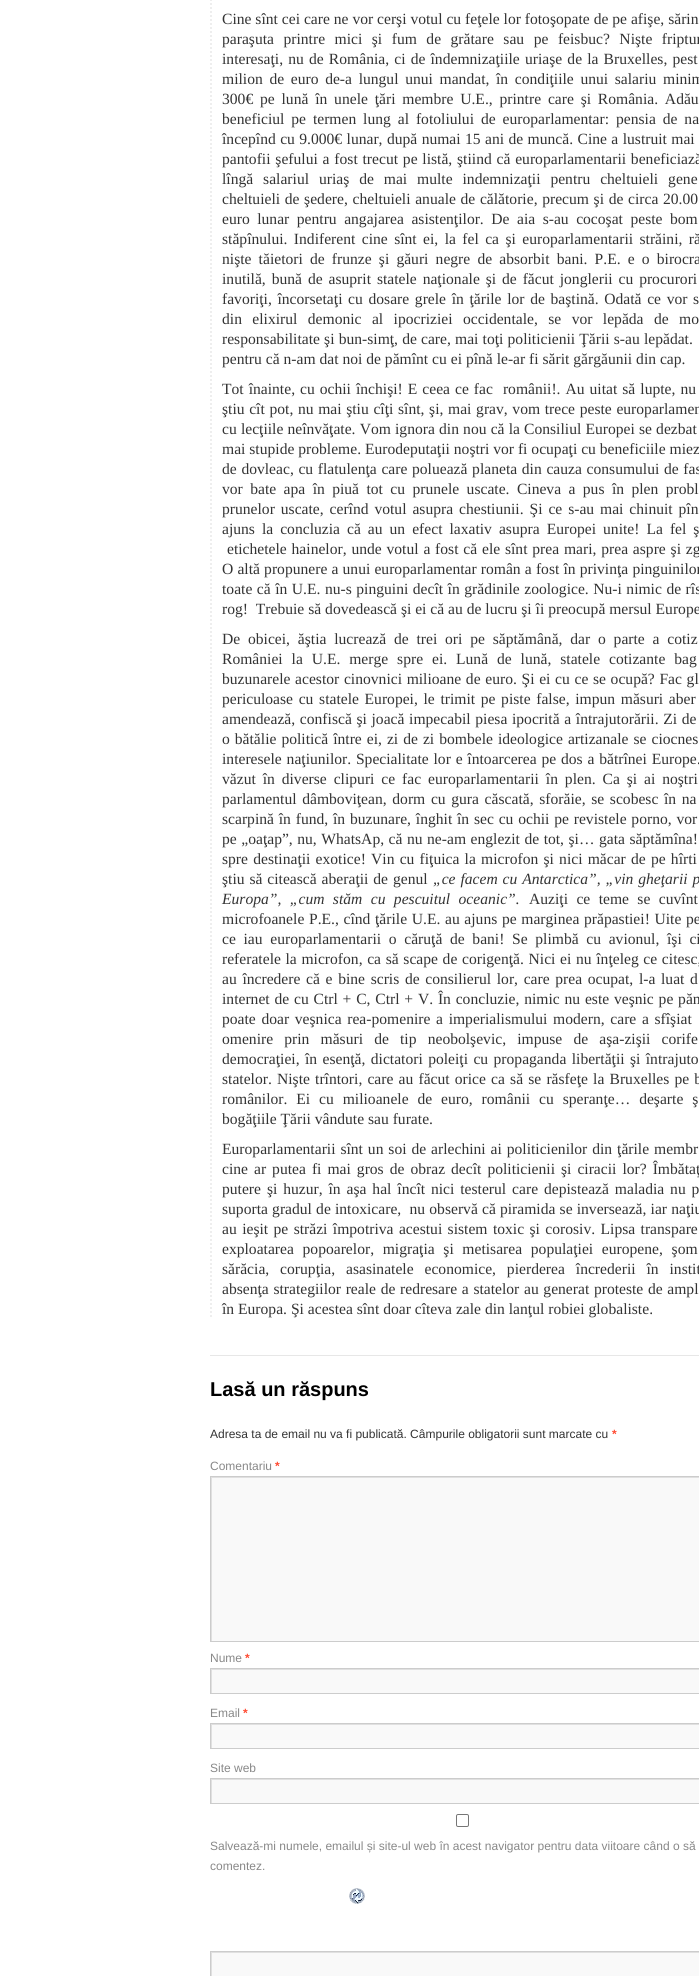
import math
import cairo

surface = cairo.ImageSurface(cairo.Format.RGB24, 699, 1976)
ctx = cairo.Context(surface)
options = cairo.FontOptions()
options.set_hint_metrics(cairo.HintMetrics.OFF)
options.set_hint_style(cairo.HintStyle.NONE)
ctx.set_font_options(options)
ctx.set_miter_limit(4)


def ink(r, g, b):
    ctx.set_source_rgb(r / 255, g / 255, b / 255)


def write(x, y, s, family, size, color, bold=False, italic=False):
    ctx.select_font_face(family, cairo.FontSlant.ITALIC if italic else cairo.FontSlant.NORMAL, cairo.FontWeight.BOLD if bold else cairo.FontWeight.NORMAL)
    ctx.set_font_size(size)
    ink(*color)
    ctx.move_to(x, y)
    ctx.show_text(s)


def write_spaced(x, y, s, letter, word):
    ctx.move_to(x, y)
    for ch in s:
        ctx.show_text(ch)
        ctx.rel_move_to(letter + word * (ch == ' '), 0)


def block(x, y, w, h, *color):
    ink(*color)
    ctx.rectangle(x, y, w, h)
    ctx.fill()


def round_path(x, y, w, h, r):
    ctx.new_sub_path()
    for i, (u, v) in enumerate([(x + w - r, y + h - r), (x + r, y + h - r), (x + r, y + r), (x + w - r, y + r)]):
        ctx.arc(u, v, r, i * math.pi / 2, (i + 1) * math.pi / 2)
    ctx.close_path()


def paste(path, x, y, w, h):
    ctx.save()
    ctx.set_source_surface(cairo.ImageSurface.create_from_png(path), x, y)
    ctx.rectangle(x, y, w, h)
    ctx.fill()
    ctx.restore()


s1 = dict(family="Liberation Serif", size=15.6, color=(51, 51, 51))
s2 = dict(family="Liberation Sans", size=20, color=(0, 0, 0), bold=True)
s3 = dict(family="Liberation Sans", size=12, color=(51, 51, 51))
s4 = dict(family="Liberation Sans", size=12, color=(255, 75, 51), bold=True)
s5 = dict(family="Liberation Sans", size=12, color=(136, 136, 136))

ink(255, 255, 255)
ctx.paint()
ctx.new_path()
ctx.move_to(211, -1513)
ctx.line_to(211, 1319)
ink(238, 238, 238)
ctx.set_dash([2, 2])
ctx.stroke()
write(222, 24, "Cine sînt cei care ne vor cerşi votul cu feţele lor fotoşopate de pe afişe, sărin", **s1)
write_spaced(222, 44, "paraşuta printre mici şi fum de grătare sau pe feisbuc? Nişte friptur", 0, 5.6)
write_spaced(222, 64, "interesaţi, nu de România, ci de îndemnizaţiile uriaşe de la Bruxelles, pest", 0, 1.25)
write_spaced(222, 84, "milion de euro de-a lungul unui mandat, în condiţiile unui salariu minim", 0, 2.75)
write_spaced(222, 104, "300€ pe lună în unele ţări membre U.E., printre care şi România. Adău", 0, 2.9)
write_spaced(222, 124, "beneficiul pe termen lung al fotoliului de europarlamentar: pensia de na", 0, 3)
write_spaced(222, 144, "începînd cu 9.000€ lunar, după numai 15 ani de muncă. Cine a lustruit mai", 0, 0.5)
write_spaced(222, 164, "pantofii şefului a fost trecut pe listă, ştiind că europarlamentarii beneficiază", 0, 0.9)
write_spaced(222, 184, "lîngă salariul uriaş de mai multe indemnizaţii pentru cheltuieli gene", 0, 6)
write_spaced(222, 204, "cheltuieli de şedere, cheltuieli anuale de călătorie, precum şi de circa 20.00", 0, 0.75)
write_spaced(222, 224, "euro lunar pentru angajarea asistenţilor. De aia s-au cocoşat peste bom", 0, 3.6)
write_spaced(222, 244, "stăpînului. Indiferent cine sînt ei, la fel ca şi europarlamentarii străini, ră", 0, 2.5)
write_spaced(222, 264, "nişte tăietori de frunze şi găuri negre de absorbit bani. P.E. e o birocra", 0, 3.25)
write_spaced(222, 284, "inutilă, bună de asuprit statele naţionale şi de făcut jonglerii cu procurori", 0, 2)
write_spaced(222, 304, "favoriţi, încorsetaţi cu dosare grele în ţările lor de baştină. Odată ce vor s", 0, 1.75)
write_spaced(222, 324, "din elixirul demonic al ipocriziei occidentale, se vor lepăda de mo", 0, 6.5)
write_spaced(222, 344, "responsabilitate şi bun-simţ, de care, mai toţi politicienii Ţării s-au lepădat.", 0, 0.25)
write(222, 364, "pentru că n-am dat noi de pămînt cu ei pînă le-ar fi sărit gărgăunii din cap.", **s1)
write_spaced(222, 394, "Tot înainte, cu ochii închişi! E ceea ce fac  românii!. Au uitat să lupte, nu", 0, 1.1)
write_spaced(222, 414, "ştiu cît pot, nu mai ştiu cîţi sînt, şi, mai grav, vom trece peste europarlamen", 0, 0.75)
write_spaced(222, 434, "cu lecţiile neînvăţate. Vom ignora din nou că la Consiliul Europei se dezbat", 0, 0.25)
write(222, 454, "mai stupide probleme. Eurodeputaţii noştri vor fi ocupaţi cu beneficiile miez", **s1)
write_spaced(222, 474, "de dovleac, cu flatulenţa care poluează planeta din cauza consumului de fas", 0, 0.75)
write_spaced(222, 494, "vor bate apa în piuă tot cu prunele uscate. Cineva a pus în plen probl", 0, 3.5)
write_spaced(222, 514, "prunelor uscate, cerînd votul asupra chestiunii. Şi ce s-au mai chinuit pîn", 0, 2)
write_spaced(222, 534, "ajuns la concluzia că au un efect laxativ asupra Europei unite! La fel ş", 0, 3.1)
write_spaced(227, 554, "etichetele hainelor, unde votul a fost că ele sînt prea mari, prea aspre şi zg", 0, 0.9)
write_spaced(222, 574, "O altă propunere a unui europarlamentar român a fost în privinţa pinguinilor", 0, 0.25)
write_spaced(222, 594, "toate că în U.E. nu-s pinguini decît în grădinile zoologice. Nu-i nimic de rîs", 0, 0.6)
write(222, 614, "rog!  Trebuie să dovedească şi ei că au de lucru şi îi preocupă mersul Europe", **s1)
write_spaced(222, 644, "De obicei, ăştia lucrează de trei ori pe săptămână, dar o parte a cotiz", 0, 3.9)
write_spaced(222, 664, "României la U.E. merge spre ei. Lună de lună, statele cotizante bag", 0, 5)
write_spaced(222, 684, "buzunarele acestor cinovnici milioane de euro. Şi ei cu ce se ocupă? Fac gl", 0, 0.75)
write_spaced(222, 704, "periculoase cu statele Europei, le trimit pe piste false, impun măsuri aber", 0, 1.75)
write_spaced(222, 724, "amendează, confiscă şi joacă impecabil piesa ipocrită a întrajutorării. Zi de", 0, 0.75)
write_spaced(222, 744, "o bătălie politică între ei, zi de zi bombele ideologice artizanale se ciocnes", 0, 1.1)
write_spaced(222, 764, "interesele naţiunilor. Specialitate lor e întoarcerea pe dos a bătrînei Europe.", 0, 0.9)
write_spaced(222, 784, "văzut în diverse clipuri ce fac europarlamentarii în plen. Ca şi ai noştri", 0, 3)
write_spaced(222, 804, "parlamentul dâmboviţean, dorm cu gura căscată, sforăie, se scobesc în na", 0, 1.75)
write_spaced(222, 824, "scarpină în fund, în buzunare, înghit în sec cu ochii pe revistele porno, vor", 0, 0.9)
write_spaced(222, 844, "pe „oaţap”, nu, WhatsAp, că nu ne-am englezit de tot, şi… gata săptămîna!", 0, 0.6)
write_spaced(222, 864, "spre destinaţii exotice! Vin cu fiţuica la microfon şi nici măcar de pe hîrti", 0, 1.3)
write_spaced(222, 884, "ştiu să citească aberaţii de genul", 0, 1)
ctx.select_font_face("Liberation Serif", cairo.FontSlant.ITALIC)
write_spaced(433, 884, "„ce facem cu Antarctica”, „vin gheţarii p", 0, 1)
write_spaced(222, 904, "Europa”, „cum stăm cu pescuitul oceanic”.", 0, 4.5)
ctx.select_font_face("Liberation Serif")
write_spaced(529, 904, "Auziţi ce teme se cuvînt", 0, 4.5)
write_spaced(222, 924, "microfoanele P.E., cînd ţările U.E. au ajuns pe marginea prăpastiei! Uite pe", 0, 0.75)
write_spaced(222, 944, "ce iau europarlamentarii o căruţă de bani! Se plimbă cu avionul, îşi ci", 0, 3.75)
write_spaced(222, 964, "referatele la microfon, ca să scape de corigenţă. Nici ei nu înţeleg ce citesc,", 0, 0.75)
write_spaced(222, 984, "au încredere că e bine scris de consilierul lor, care prea ocupat, l-a luat d", 0, 1.75)
write_spaced(222, 1004, "internet de cu Ctrl + C, Ctrl + V. În concluzie, nimic nu este veşnic pe păm", 0, 0.9)
write_spaced(222, 1024, "poate doar veşnica rea-pomenire a imperialismului modern, care a sfîşiat", 0, 1.75)
write_spaced(222, 1044, "omenire prin măsuri de tip neobolşevic, impuse de aşa-zişii corife", 0, 7.25)
write_spaced(222, 1064, "democraţiei, în esenţă, dictatori poleiţi cu propaganda libertăţii şi întrajuto", 0, 1.5)
write_spaced(222, 1084, "statelor. Nişte trîntori, care au făcut orice ca să se răsfeţe la Bruxelles pe b", 0, 1.25)
write_spaced(222, 1104, "românilor. Ei cu milioanele de euro, românii cu speranţe… deşarte ş", 0, 5)
write(222, 1124, "bogăţiile Ţării vândute sau furate.", **s1)
write_spaced(222, 1154, "Europarlamentarii sînt un soi de arlechini ai politicienilor din ţările membr", 0, 1)
write_spaced(222, 1174, "cine ar putea fi mai gros de obraz decît politicienii şi ciracii lor? Îmbătaţ", 0, 2.1)
write_spaced(222, 1194, "putere şi huzur, în aşa hal încît nici testerul care depistează maladia nu p", 0, 2)
write_spaced(222, 1214, "suporta gradul de intoxicare,  nu observă că piramida se inversează, iar naţiu", 0, 0.25)
write_spaced(222, 1234, "au ieşit pe străzi împotriva acestui sistem toxic şi corosiv. Lipsa transpare", 0, 1.5)
write_spaced(222, 1254, "exploatarea popoarelor, migraţia şi metisarea populaţiei europene, şom", 0, 4.75)
write_spaced(222, 1274, "sărăcia, corupţia, asasinatele economice, pierderea încrederii în instit", 0, 7)
write_spaced(222, 1294, "absenţa strategiilor reale de redresare a statelor au generat proteste de ampl", 0, 0.75)
write(222, 1314, "în Europa. Şi acestea sînt doar cîteva zale din lanţul robiei globaliste.", **s1)
block(210, 1355, 489, 1, 231, 231, 231)
write(210, 1396, "Lasă un răspuns", **s2)
write(210, 1438, "Adresa ta de email nu va fi publicată. Câmpurile obligatorii sunt marcate cu", **s3)
write(612, 1438, "*", **s4)
write(210, 1470, "Comentariu", **s5)
write(275, 1470, "*", **s4)
block(212, 1478, 487, 163, 249, 249, 249)
ctx.save()
ctx.rectangle(211, 1477, 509, 164)
ctx.clip()
ink(224, 224, 224)
ctx.set_fill_rule(cairo.FillRule.EVEN_ODD)
ctx.new_path()
ctx.move_to(112, 1378)
ctx.line_to(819, 1378)
ctx.line_to(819, 1740)
ctx.line_to(112, 1740)
ctx.close_path()
ctx.move_to(212, 1478)
ctx.line_to(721, 1478)
ctx.line_to(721, 1642)
ctx.line_to(212, 1642)
ctx.close_path()
ctx.fill()
ctx.restore()
ctx.rectangle(210.5, 1476.5, 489, 165)
ink(204, 204, 204)
ctx.set_line_width(1)
ctx.set_dash([])
ctx.stroke()
write(210, 1662, "Nume", **s5)
write(245, 1662, "*", **s4)
block(212, 1670, 487, 23, 249, 249, 249)
ctx.save()
ctx.rectangle(211, 1669, 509, 24)
ctx.clip()
ink(224, 224, 224)
ctx.set_fill_rule(cairo.FillRule.EVEN_ODD)
ctx.new_path()
ctx.move_to(112, 1570)
ctx.line_to(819, 1570)
ctx.line_to(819, 1792)
ctx.line_to(112, 1792)
ctx.close_path()
ctx.move_to(212, 1670)
ctx.line_to(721, 1670)
ctx.line_to(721, 1694)
ctx.line_to(212, 1694)
ctx.close_path()
ctx.fill()
ctx.restore()
ctx.rectangle(210.5, 1668.5, 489, 25)
ink(204, 204, 204)
ctx.stroke()
write(210, 1717, "Email", **s5)
write(243, 1717, "*", **s4)
block(212, 1725, 487, 23, 249, 249, 249)
ctx.save()
ctx.rectangle(211, 1724, 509, 24)
ctx.clip()
ink(224, 224, 224)
ctx.set_fill_rule(cairo.FillRule.EVEN_ODD)
ctx.new_path()
ctx.move_to(112, 1625)
ctx.line_to(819, 1625)
ctx.line_to(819, 1847)
ctx.line_to(112, 1847)
ctx.close_path()
ctx.move_to(212, 1725)
ctx.line_to(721, 1725)
ctx.line_to(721, 1749)
ctx.line_to(212, 1749)
ctx.close_path()
ctx.fill()
ctx.restore()
ctx.rectangle(210.5, 1723.5, 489, 25)
ink(204, 204, 204)
ctx.stroke()
write(210, 1772, "Site web", **s5)
block(212, 1780, 487, 23, 249, 249, 249)
ctx.save()
ctx.rectangle(211, 1779, 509, 24)
ctx.clip()
ink(224, 224, 224)
ctx.set_fill_rule(cairo.FillRule.EVEN_ODD)
ctx.new_path()
ctx.move_to(112, 1680)
ctx.line_to(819, 1680)
ctx.line_to(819, 1902)
ctx.line_to(112, 1902)
ctx.close_path()
ctx.move_to(212, 1780)
ctx.line_to(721, 1780)
ctx.line_to(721, 1804)
ctx.line_to(212, 1804)
ctx.close_path()
ctx.fill()
ctx.restore()
ctx.rectangle(210.5, 1778.5, 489, 25)
ink(204, 204, 204)
ctx.stroke()
round_path(456.5, 1814.5, 12, 12, 1.5)
ink(118, 118, 118)
ctx.stroke()
write(210, 1850, "Salvează-mi numele, emailul și site-ul web în acest navigator pentru data viitoare când o să", **s5)
write(210, 1870, "comentez.", **s5)
paste("pic1.png", 349, 1888, 16, 16)
block(212, 1953, 487, 23, 249, 249, 249)
ctx.save()
ctx.rectangle(211, 1952, 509, 24)
ctx.clip()
ink(224, 224, 224)
ctx.set_fill_rule(cairo.FillRule.EVEN_ODD)
ctx.new_path()
ctx.move_to(112, 1853)
ctx.line_to(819, 1853)
ctx.line_to(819, 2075)
ctx.line_to(112, 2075)
ctx.close_path()
ctx.move_to(212, 1953)
ctx.line_to(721, 1953)
ctx.line_to(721, 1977)
ctx.line_to(212, 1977)
ctx.close_path()
ctx.fill()
ctx.restore()
ctx.rectangle(210.5, 1951.5, 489, 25)
ink(204, 204, 204)
ctx.stroke()
surface.write_to_png("screenshot.png")
